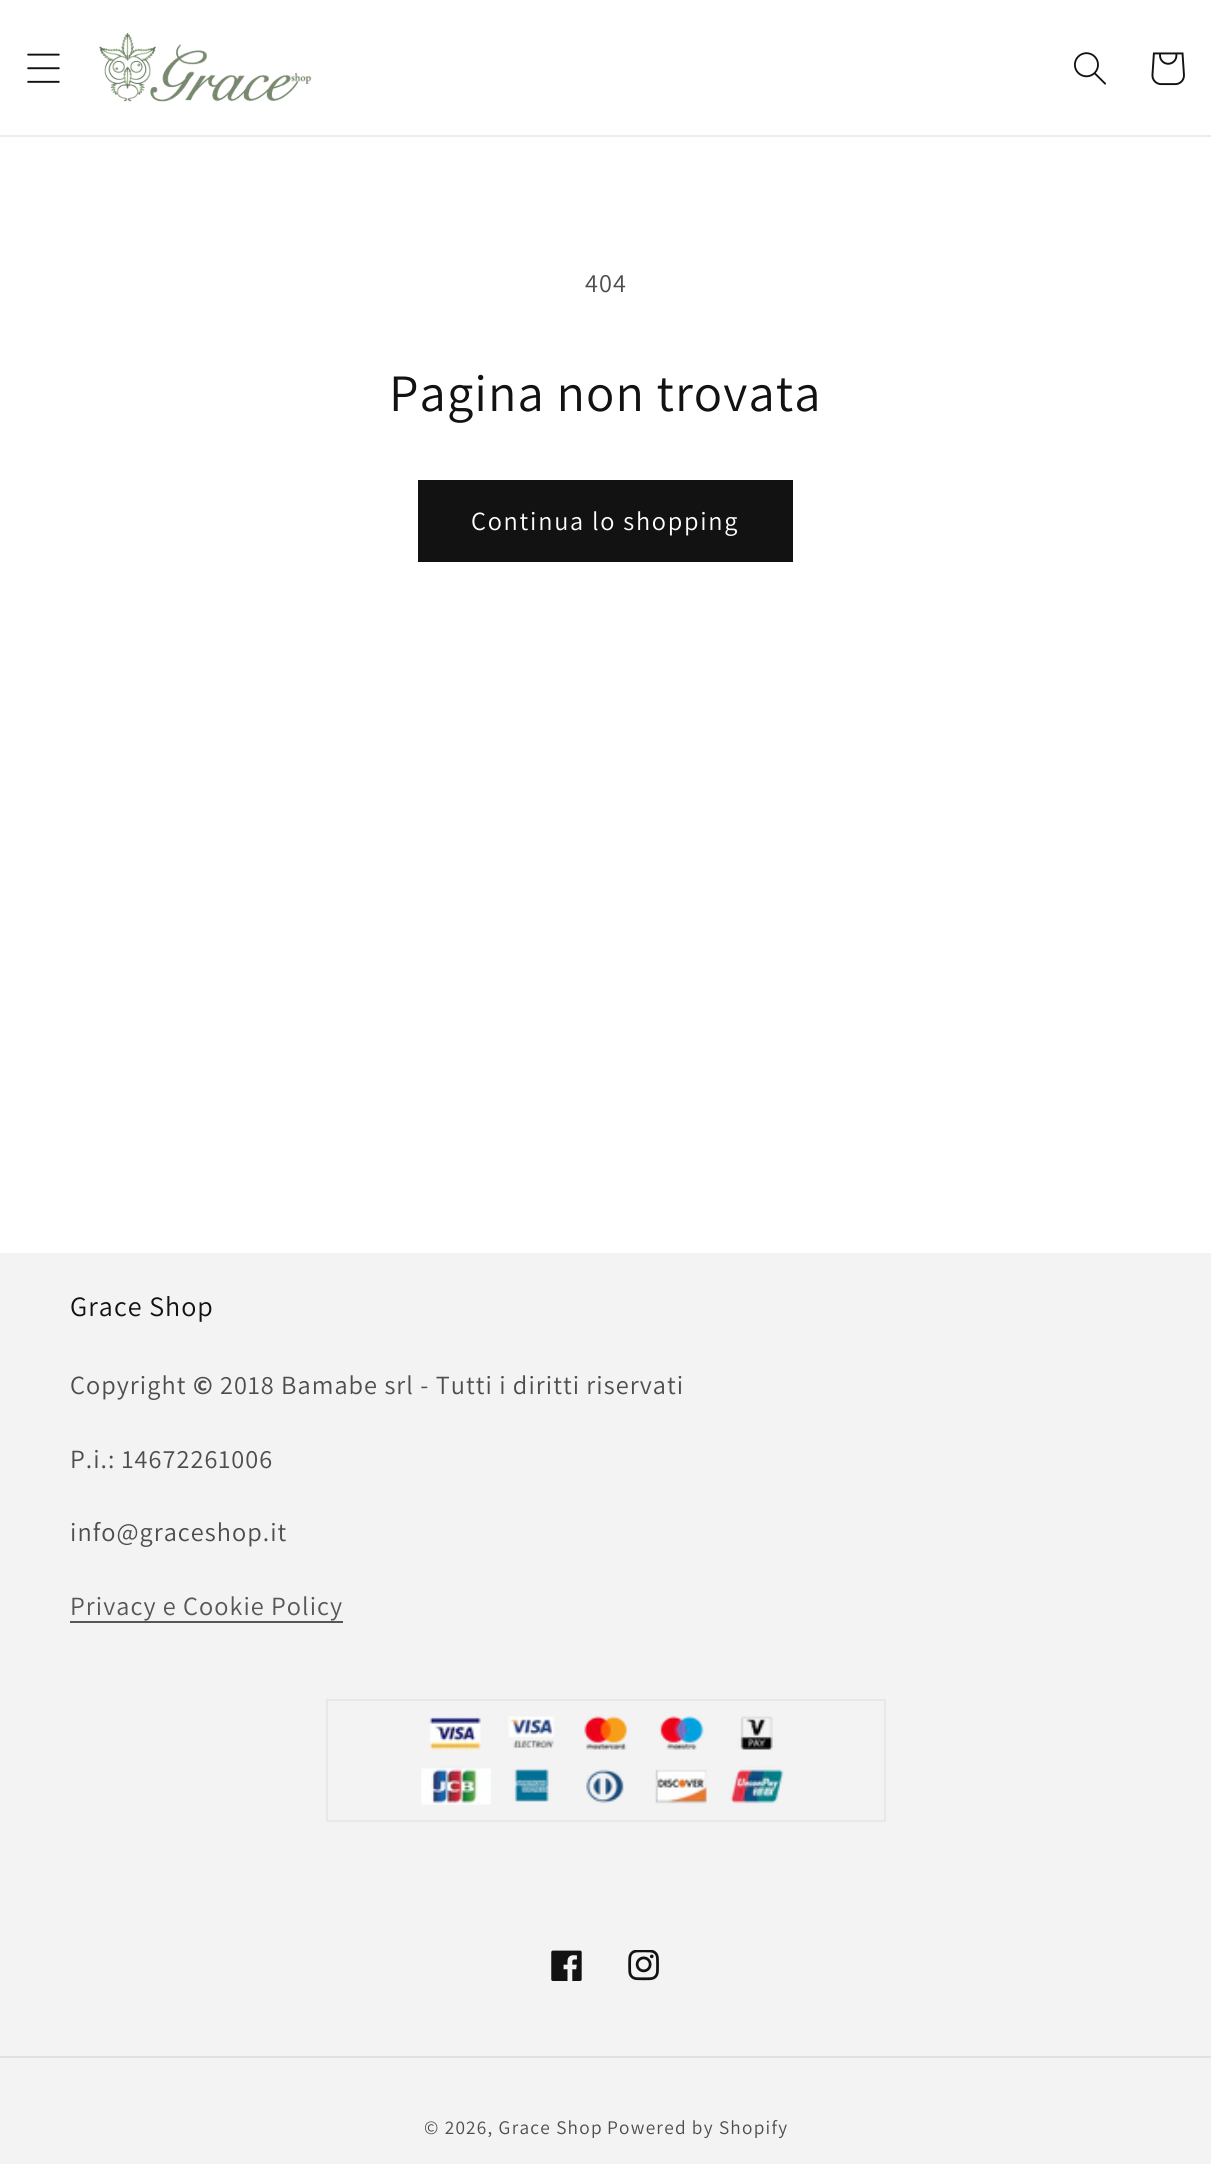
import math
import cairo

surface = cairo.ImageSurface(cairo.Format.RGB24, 1211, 2164)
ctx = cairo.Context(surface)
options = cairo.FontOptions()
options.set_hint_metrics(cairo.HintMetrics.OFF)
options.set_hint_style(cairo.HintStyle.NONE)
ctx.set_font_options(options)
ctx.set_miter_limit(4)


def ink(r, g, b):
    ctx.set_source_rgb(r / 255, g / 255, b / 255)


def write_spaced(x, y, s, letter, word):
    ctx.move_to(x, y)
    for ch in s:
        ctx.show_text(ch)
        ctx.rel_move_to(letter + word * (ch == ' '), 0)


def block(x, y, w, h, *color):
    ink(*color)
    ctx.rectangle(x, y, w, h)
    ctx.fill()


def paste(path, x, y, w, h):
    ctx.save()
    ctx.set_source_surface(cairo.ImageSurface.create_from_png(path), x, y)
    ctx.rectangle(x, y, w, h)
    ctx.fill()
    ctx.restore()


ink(255, 255, 255)
ctx.paint()
block(0, 135, 1211, 2, 236, 236, 236)
paste("pic1.png", 27, 53, 33, 30)
paste("pic2.png", 99, 32, 213, 70)
paste("pic3.png", 1074, 52, 32, 33)
paste("pic4.png", 1151, 52, 34, 34)
ctx.select_font_face("Assistant")
ctx.set_font_size(26.25)
ink(77, 77, 77)
write_spaced(585, 292, "404", 1.05, 0)
ctx.set_font_size(52.5)
ink(18, 18, 18)
write_spaced(389, 411, "Pagina non trovata", 1.05, 0)
block(418, 480, 375, 82, 18, 18, 18)
ctx.set_font_size(26.25)
ink(255, 255, 255)
write_spaced(471, 530, "Continua lo shopping", 1.75, 0)
block(0, 1253, 1211, 911, 243, 243, 243)
ctx.set_font_size(28)
ink(18, 18, 18)
write_spaced(70, 1316, "Grace Shop", 1.05, 0)
ctx.set_font_size(26.25)
ink(77, 77, 77)
write_spaced(70, 1394, "Copyright", 1.05, 0)
ctx.select_font_face("Assistant", cairo.FontSlant.NORMAL, cairo.FontWeight.BOLD)
write_spaced(193, 1394, "©", 1.05, 0)
ctx.select_font_face("Assistant")
write_spaced(220, 1394, "2018 Bamabe srl - Tutti i diritti riservati", 1.05, 0)
write_spaced(70, 1468, "P.i.: 14672261006", 1.05, 0)
write_spaced(70, 1541, "info@graceshop.it", 1.05, 0)
ink(86, 86, 86)
write_spaced(70, 1615, "Privacy e Cookie Policy", 1.05, 0)
block(70, 1621, 273, 2, 86, 86, 86)
ctx.rectangle(327, 1700, 558, 121)
ink(232, 232, 232)
ctx.stroke()
paste("pic5.png", 421, 1716, 363, 89)
paste("pic6.png", 551, 1950, 31, 31)
paste("pic7.png", 628, 1950, 31, 31)
block(0, 2056, 1211, 2, 225, 225, 225)
ctx.set_font_size(19.25)
ink(77, 77, 77)
write_spaced(424, 2134, "© 2026, Grace Shop", 1.25, 0)
write_spaced(607, 2134, "Powered by Shopify", 1.25, 0)
surface.write_to_png("screenshot.png")
